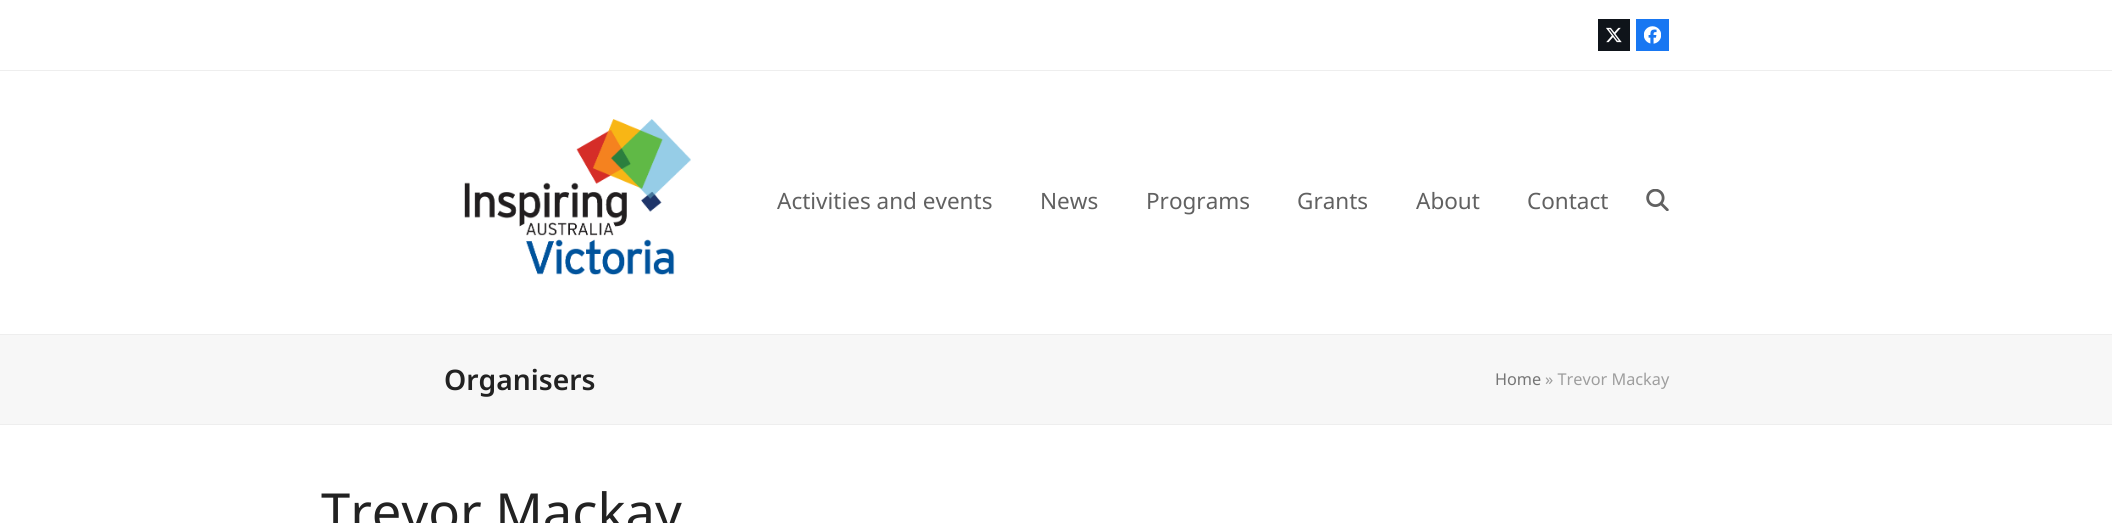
import math
import cairo

surface = cairo.ImageSurface(cairo.Format.RGB24, 2112, 523)
ctx = cairo.Context(surface)
options = cairo.FontOptions()
options.set_hint_metrics(cairo.HintMetrics.OFF)
options.set_hint_style(cairo.HintStyle.NONE)
ctx.set_font_options(options)
ctx.set_miter_limit(4)


def ink(r, g, b):
    ctx.set_source_rgb(r / 255, g / 255, b / 255)


def write(x, y, s, family, size, color, bold=False, italic=False):
    ctx.select_font_face(family, cairo.FontSlant.ITALIC if italic else cairo.FontSlant.NORMAL, cairo.FontWeight.BOLD if bold else cairo.FontWeight.NORMAL)
    ctx.set_font_size(size)
    ink(*color)
    ctx.move_to(x, y)
    ctx.show_text(s)


def block(x, y, w, h, *color):
    ink(*color)
    ctx.rectangle(x, y, w, h)
    ctx.fill()


def paste(path, x, y, w, h):
    ctx.save()
    ctx.set_source_surface(cairo.ImageSurface.create_from_png(path), x, y)
    ctx.rectangle(x, y, w, h)
    ctx.fill()
    ctx.restore()


s1 = dict(family="Noto Sans", size=22.5, color=(97, 97, 97))
s2 = dict(family="Noto Sans SemiBold", size=28.25, color=(34, 34, 34))
s3 = dict(family="Noto Sans", size=16.25, color=(117, 117, 117))
s4 = dict(family="Noto Sans", size=16.25, color=(158, 158, 158))
s5 = dict(family="Noto Sans", size=52.5, color=(34, 34, 34))

ink(255, 255, 255)
ctx.paint()
block(0, 70, 2112, 1, 238, 238, 238)
block(1598, 19, 32, 32, 15, 20, 26)
paste("pic1.png", 1606, 27, 16, 16)
block(1636, 19, 33, 32, 24, 119, 242)
paste("pic2.png", 1644, 26, 17, 18)
paste("pic3.png", 464, 119, 227, 156)
write(777, 209, "Activities and events", **s1)
write(1040, 209, "News", **s1)
write(1146, 209, "Programs", **s1)
write(1297, 209, "Grants", **s1)
write(1416, 209, "About", **s1)
write(1527, 209, "Contact", **s1)
paste("pic4.png", 1646, 189, 23, 22)
block(0, 335, 2112, 89, 247, 247, 247)
block(0, 334, 2112, 1, 238, 238, 238)
block(0, 424, 2112, 1, 238, 238, 238)
write(444, 390, "Organisers", **s2)
write(1495, 385, "Home", **s3)
write(1545, 385, "» Trevor Mackay", **s4)
write(321, 531, "Trevor Mackay", **s5)
surface.write_to_png("screenshot.png")
